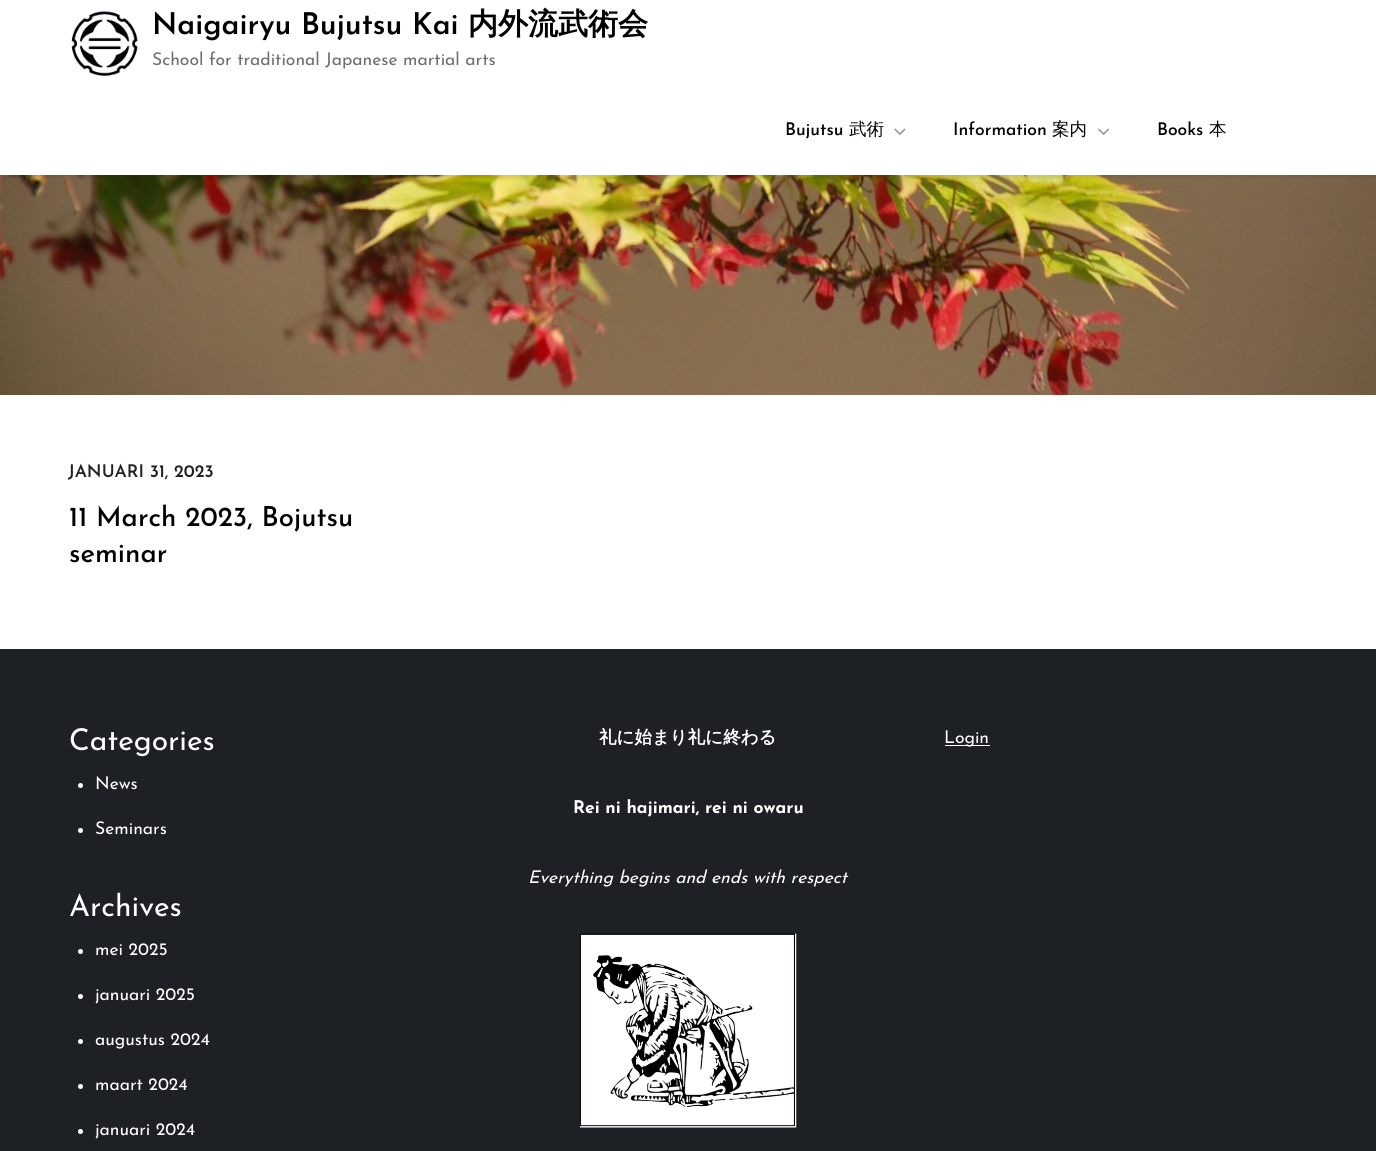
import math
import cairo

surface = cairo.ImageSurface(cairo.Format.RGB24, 1376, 1151)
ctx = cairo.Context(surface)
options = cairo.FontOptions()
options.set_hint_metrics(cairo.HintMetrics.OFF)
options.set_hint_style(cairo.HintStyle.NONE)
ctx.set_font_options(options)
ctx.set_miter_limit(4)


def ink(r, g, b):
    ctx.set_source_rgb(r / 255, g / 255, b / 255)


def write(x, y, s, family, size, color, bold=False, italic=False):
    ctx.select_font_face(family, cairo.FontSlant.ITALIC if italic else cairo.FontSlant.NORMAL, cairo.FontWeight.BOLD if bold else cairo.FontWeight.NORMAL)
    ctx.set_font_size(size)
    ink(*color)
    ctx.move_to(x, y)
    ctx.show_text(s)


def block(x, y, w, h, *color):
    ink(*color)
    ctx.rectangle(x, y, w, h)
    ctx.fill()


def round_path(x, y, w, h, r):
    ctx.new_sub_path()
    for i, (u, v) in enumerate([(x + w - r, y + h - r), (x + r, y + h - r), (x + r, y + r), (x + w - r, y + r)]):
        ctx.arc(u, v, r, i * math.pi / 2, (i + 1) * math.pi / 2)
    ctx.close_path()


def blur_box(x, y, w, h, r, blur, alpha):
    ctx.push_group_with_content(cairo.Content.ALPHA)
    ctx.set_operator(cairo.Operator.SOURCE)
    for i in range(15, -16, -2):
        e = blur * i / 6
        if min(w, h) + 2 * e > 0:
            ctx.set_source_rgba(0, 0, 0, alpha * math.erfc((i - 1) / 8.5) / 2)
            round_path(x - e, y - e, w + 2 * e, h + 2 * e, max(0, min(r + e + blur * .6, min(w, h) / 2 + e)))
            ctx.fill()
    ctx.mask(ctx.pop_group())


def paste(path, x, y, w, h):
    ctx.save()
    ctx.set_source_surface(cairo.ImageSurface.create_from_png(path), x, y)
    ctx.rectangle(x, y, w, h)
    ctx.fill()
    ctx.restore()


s1 = dict(family="Josefin Sans SemiBold", size=30, color=(0, 0, 0))
s2 = dict(family="WenQuanYi Zen Hei", size=30, color=(0, 0, 0), bold=True)
s3 = dict(family="Josefin Sans", size=17.5, color=(111, 111, 111))
s4 = dict(family="Josefin Sans Medium", size=17.5, color=(0, 0, 0))
s5 = dict(family="WenQuanYi Zen Hei Medium", size=17.5, color=(0, 0, 0))
s6 = dict(family="Josefin Sans SemiBold", size=17.5, color=(34, 34, 34))
s7 = dict(family="Josefin Sans Medium", size=27.5, color=(0, 0, 0))
s8 = dict(family="Josefin Sans", size=30, color=(255, 255, 255))
s9 = dict(family="Josefin Sans", size=17.5, color=(255, 255, 255))
s10 = dict(family="WenQuanYi Zen Hei", size=17.5, color=(255, 255, 255), bold=True)
s11 = dict(family="Josefin Sans", size=17.5, color=(255, 255, 255), bold=True)
s12 = dict(family="Josefin Sans", size=17.5, color=(255, 255, 255), italic=True)

ink(255, 255, 255)
ctx.paint()
paste("pic4.png", 0, 175, 1376, 220)
ctx.save()
ctx.rectangle(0, 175, 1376, 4)
ctx.clip()
ink(0, 0, 0)
blur_box(0, 3, 1376, 175, 0, 2, 0.07)
ctx.restore()
paste("pic1.png", 71, 11, 67, 65)
write(152, 34, "Naigairyu Bujutsu Kai", **s1)
write(468, 34, "内外流武術会", **s2)
write(152, 65, "School for traditional Japanese martial arts", **s3)
write(785, 135, "Bujutsu", **s4)
write(849, 135, "武術", **s5)
paste("pic2.png", 894, 128, 12, 7)
write(953, 135, "Information", **s4)
write(1052, 135, "案内", **s5)
paste("pic3.png", 1098, 128, 12, 7)
write(1157, 135, "Books", **s4)
write(1209, 135, "本", **s5)
write(68, 477, "JANUARI 31, 2023", **s6)
write(69, 526, "11 March 2023, Bojutsu", **s7)
write(69, 562, "seminar", **s7)
block(0, 649, 1376, 502, 29, 32, 36)
write(69, 750, "Categories", **s8)
ctx.new_path()
ctx.arc(80.5, 785.5, 2.5, 0, 2 * math.pi)
ctx.fill()
write(95, 789, "News", **s9)
ctx.new_path()
ctx.arc(80.5, 830.5, 2.5, 0, 2 * math.pi)
ctx.fill()
write(95, 834, "Seminars", **s9)
write(69, 916, "Archives", **s8)
ctx.new_path()
ctx.arc(80.5, 951.5, 2.5, 0, 2 * math.pi)
ctx.fill()
write(95, 955, "mei 2025", **s9)
ctx.new_path()
ctx.arc(80.5, 996.5, 2.5, 0, 2 * math.pi)
ctx.fill()
write(95, 1000, "januari 2025", **s9)
ctx.new_path()
ctx.arc(80.5, 1041.5, 2.5, 0, 2 * math.pi)
ctx.fill()
write(95, 1045, "augustus 2024", **s9)
ctx.new_path()
ctx.arc(80.5, 1086.5, 2.5, 0, 2 * math.pi)
ctx.fill()
write(95, 1090, "maart 2024", **s9)
ctx.new_path()
ctx.arc(80.5, 1131.5, 2.5, 0, 2 * math.pi)
ctx.fill()
write(95, 1135, "januari 2024", **s9)
write(599, 743, "礼に始まり礼に終わる", **s10)
write(573, 813, "Rei ni hajimari, rei ni owaru", **s11)
write(528, 883, "Everything begins and ends with respect", **s12)
paste("pic5.png", 580, 933, 217, 195)
block(945, 745, 45, 1, 255, 255, 255)
write(944, 743, "Login", **s9)
surface.write_to_png("screenshot.png")
